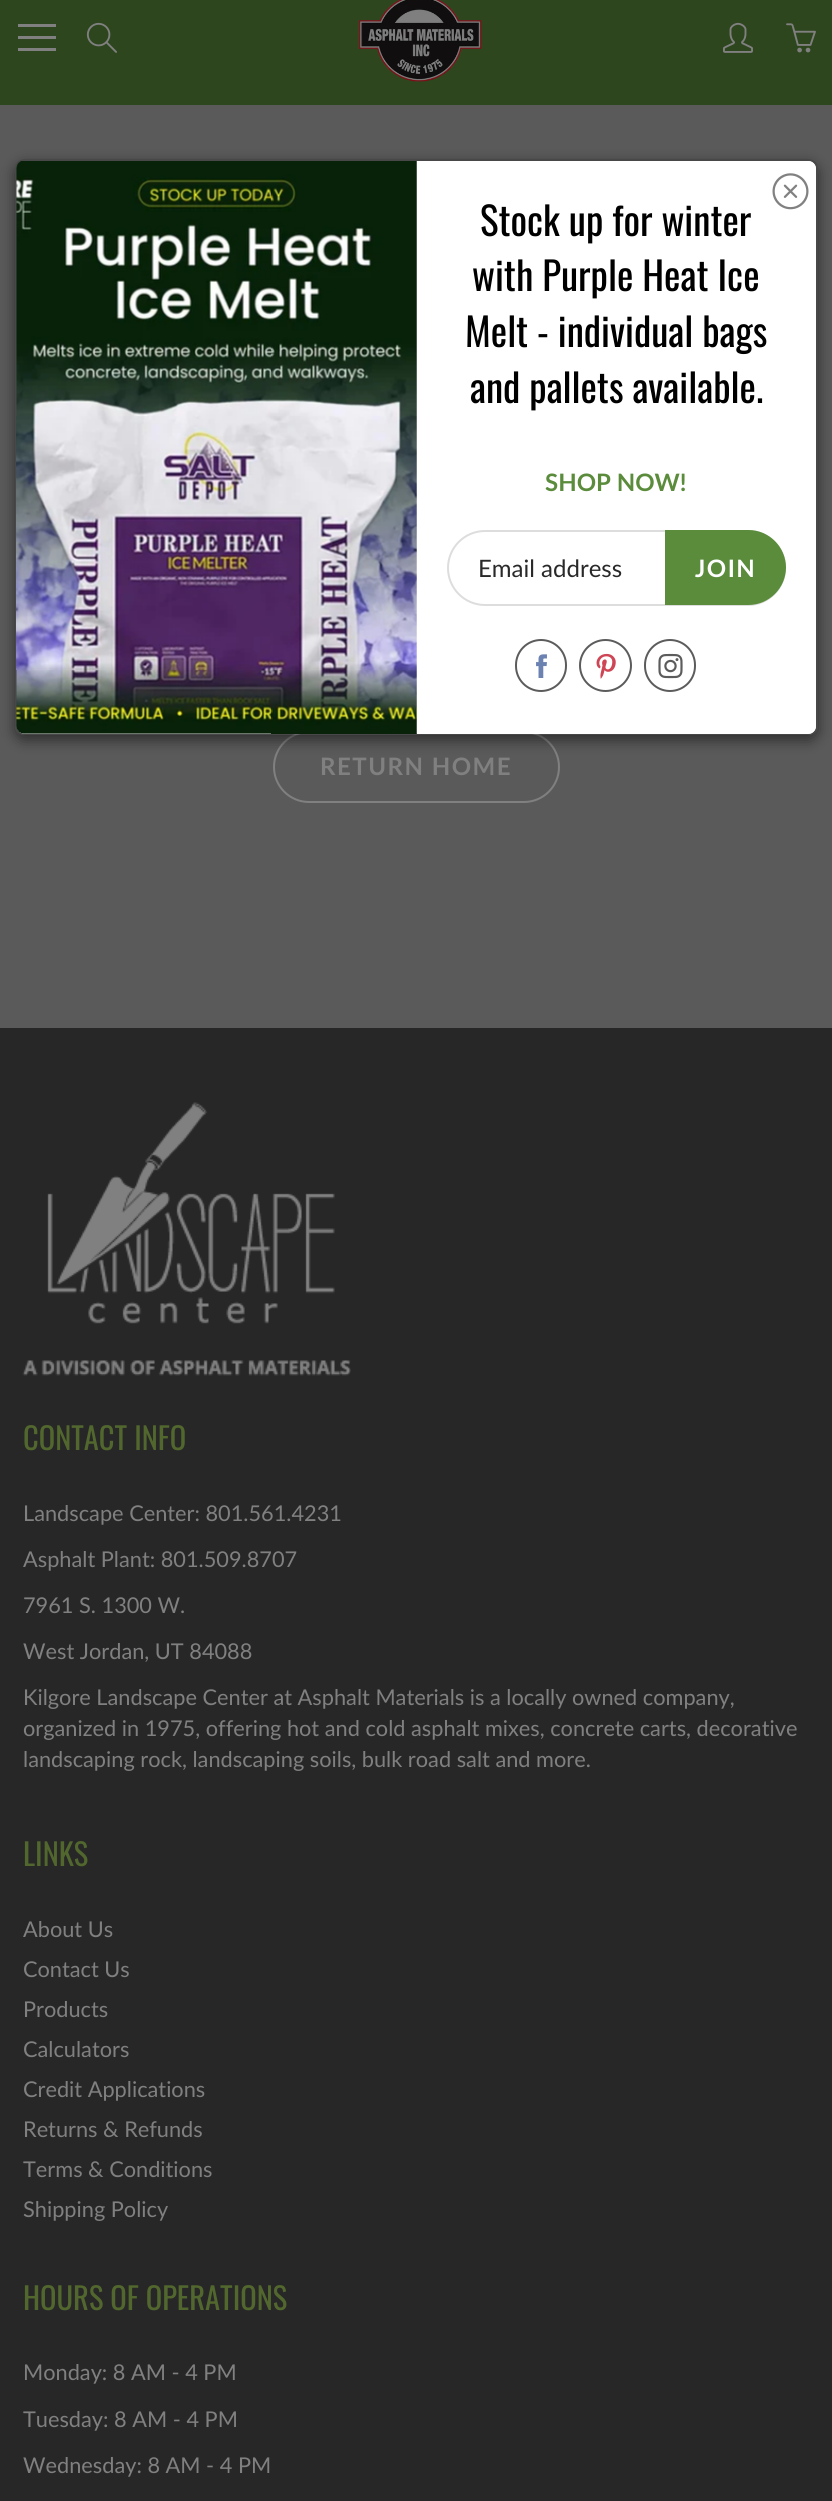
import math
import cairo

surface = cairo.ImageSurface(cairo.Format.RGB24, 832, 2501)
ctx = cairo.Context(surface)
options = cairo.FontOptions()
options.set_hint_metrics(cairo.HintMetrics.OFF)
options.set_hint_style(cairo.HintStyle.NONE)
ctx.set_font_options(options)
ctx.set_miter_limit(4)


def ink(r, g, b):
    ctx.set_source_rgb(r / 255, g / 255, b / 255)


def write(x, y, s, family, size, color, bold=False, italic=False):
    ctx.select_font_face(family, cairo.FontSlant.ITALIC if italic else cairo.FontSlant.NORMAL, cairo.FontWeight.BOLD if bold else cairo.FontWeight.NORMAL)
    ctx.set_font_size(size)
    ink(*color)
    ctx.move_to(x, y)
    ctx.show_text(s)


def write_spaced(x, y, s, letter, word):
    ctx.move_to(x, y)
    for ch in s:
        ctx.show_text(ch)
        ctx.rel_move_to(letter + word * (ch == ' '), 0)


def block(x, y, w, h, *color):
    ink(*color)
    ctx.rectangle(x, y, w, h)
    ctx.fill()


def round_path(x, y, w, h, r):
    ctx.new_sub_path()
    for i, (u, v) in enumerate([(x + w - r, y + h - r), (x + r, y + h - r), (x + r, y + r), (x + w - r, y + r)]):
        ctx.arc(u, v, r, i * math.pi / 2, (i + 1) * math.pi / 2)
    ctx.close_path()


def blur_box(x, y, w, h, r, blur, alpha):
    ctx.push_group_with_content(cairo.Content.ALPHA)
    ctx.set_operator(cairo.Operator.SOURCE)
    for i in range(15, -16, -2):
        e = blur * i / 6
        if min(w, h) + 2 * e > 0:
            ctx.set_source_rgba(0, 0, 0, alpha * math.erfc((i - 1) / 8.5) / 2)
            round_path(x - e, y - e, w + 2 * e, h + 2 * e, max(0, min(r + e + blur * .6, min(w, h) / 2 + e)))
            ctx.fill()
    ctx.mask(ctx.pop_group())


def paste(path, x, y, w, h):
    ctx.save()
    ctx.set_source_surface(cairo.ImageSurface.create_from_png(path), x, y)
    ctx.rectangle(x, y, w, h)
    ctx.fill()
    ctx.restore()


s1 = dict(family="Oswald", size=39, color=(0, 0, 0))
s2 = dict(family="Lato", size=24, color=(90, 140, 60), bold=True)
s3 = dict(family="Lato", size=24, color=(41, 41, 41))
s4 = dict(family="Oswald", size=30.5, color=(81, 103, 46))
s5 = dict(family="Lato", size=21.75, color=(128, 128, 128))

ink(45, 70, 30)
ctx.paint()
block(18, 36, 38, 3, 128, 128, 128)
block(18, 24, 38, 3, 128, 128, 128)
block(18, 48, 38, 3, 128, 128, 128)
paste("pic1.png", 86, 22, 31, 31)
paste("pic2.png", 358, 0, 124, 82)
paste("pic3.png", 723, 22, 30, 31)
paste("pic4.png", 786, 23, 30, 30)
block(0, 105, 832, 923, 90, 90, 90)
round_path(274, 732, 285, 70, 35)
ink(128, 128, 128)
ctx.stroke()
ctx.save()
ctx.set_fill_rule(cairo.FillRule.EVEN_ODD)
ctx.new_path()
ctx.move_to(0, 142)
ctx.line_to(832, 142)
ctx.line_to(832, 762)
ctx.line_to(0, 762)
ctx.close_path()
ctx.move_to(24, 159)
ctx.line_to(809, 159)
ctx.curve_to(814, 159, 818, 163, 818, 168)
ctx.line_to(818, 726)
ctx.curve_to(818, 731, 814, 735, 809, 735)
ctx.line_to(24, 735)
ctx.curve_to(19, 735, 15, 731, 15, 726)
ctx.line_to(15, 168)
ctx.curve_to(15, 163, 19, 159, 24, 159)
ctx.close_path()
ctx.clip()
ink(0, 0, 0)
blur_box(15, 164, 803, 576, 9, 7, 0.5)
ctx.restore()
ink(255, 255, 255)
round_path(17, 161, 799, 573, 8)
ctx.fill()
round_path(16, 160, 801, 574, 8)
ctx.set_source_rgba(0, 0, 0, 0.2)
ctx.stroke()
paste("pic5.png", 16, 161, 401, 573)
ink(255, 255, 255)
ctx.new_path()
ctx.move_to(417, 161)
ctx.line_to(808, 161)
ctx.curve_to(812.5, 161, 816, 164.5, 816, 169)
ctx.line_to(816, 726)
ctx.curve_to(816, 730.5, 812.5, 734, 808, 734)
ctx.line_to(417, 734)
ctx.close_path()
ctx.fill()
paste("pic6.png", 772, 173, 37, 37)
write(480, 236, "Stock up for winter", **s1)
write(472, 291, "with Purple Heat Ice", **s1)
write(465, 347, "Melt - individual bags", **s1)
write(470, 403, "and pallets available.", **s1)
write(545, 491, "SHOP NOW!", **s2)
round_path(448, 531, 337, 74, 37)
ink(221, 221, 221)
ctx.stroke()
write(478, 577, "Email address", **s3)
ink(90, 140, 60)
ctx.new_path()
ctx.move_to(665, 530)
ctx.line_to(748.5, 530)
ctx.curve_to(769, 530, 786, 547, 786, 567.5)
ctx.curve_to(786, 588, 769, 605, 748.5, 605)
ctx.line_to(665, 605)
ctx.close_path()
ctx.fill()
ctx.select_font_face("Lato", cairo.FontSlant.NORMAL, cairo.FontWeight.BOLD)
ink(255, 255, 255)
write_spaced(695, 577, "JOIN", 1.5, 0)
round_path(516, 640, 50, 51, 25)
ink(92, 92, 92)
ctx.stroke()
paste("pic7.png", 536, 654, 11, 24)
ctx.arc(605.5, 665.5, 25.5, 0, 2 * math.pi)
ctx.stroke()
paste("pic8.png", 596, 653, 20, 26)
round_path(645, 640, 50, 51, 25)
ctx.stroke()
paste("pic9.png", 658, 653, 25, 26)
ink(128, 128, 128)
write_spaced(320, 775, "RETURN HOME", 1.5, 0)
block(0, 1028, 832, 1473, 39, 39, 39)
paste("pic10.png", 22, 1102, 329, 274)
write(23, 1450, "CONTACT INFO", **s4)
write(23, 1521, "Landscape Center: 801.561.4231", **s5)
write(23, 1567, "Asphalt Plant: 801.509.8707", **s5)
write(23, 1613, "7961 S. 1300 W.", **s5)
write(23, 1659, "West Jordan, UT 84088", **s5)
write(23, 1705, "Kilgore Landscape Center at Asphalt Materials is a locally owned company,", **s5)
write(23, 1736, "organized in 1975, offering hot and cold asphalt mixes, concrete carts, decorative", **s5)
write(23, 1767, "landscaping rock, landscaping soils, bulk road salt and more.", **s5)
write(23, 1866, "LINKS", **s4)
write(23, 1937, "About Us", **s5)
write(23, 1977, "Contact Us", **s5)
write(23, 2017, "Products", **s5)
write(23, 2057, "Calculators", **s5)
write(23, 2097, "Credit Applications", **s5)
write(23, 2137, "Returns & Refunds", **s5)
write(23, 2177, "Terms & Conditions", **s5)
write(23, 2217, "Shipping Policy", **s5)
write(23, 2310, "HOURS OF OPERATIONS", **s4)
write(23, 2380, "Monday: 8 AM - 4 PM", **s5)
write(23, 2427, "Tuesday: 8 AM - 4 PM", **s5)
write(23, 2473, "Wednesday: 8 AM - 4 PM", **s5)
surface.write_to_png("screenshot.png")
